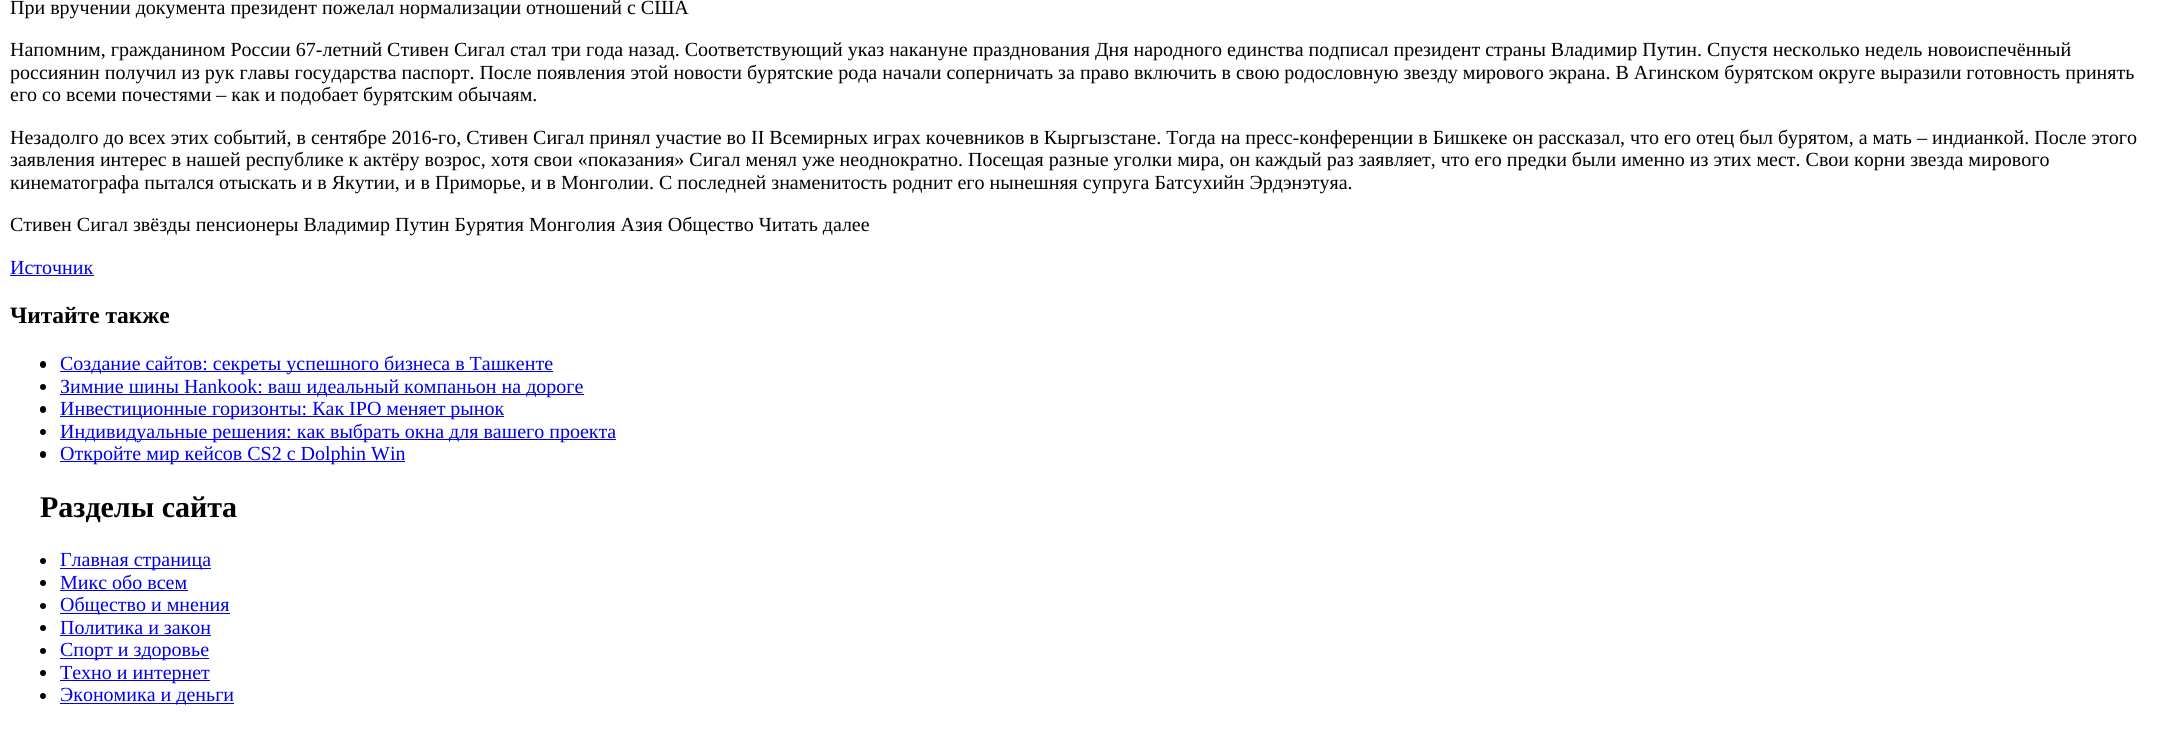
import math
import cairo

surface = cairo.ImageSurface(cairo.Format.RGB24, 2166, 753)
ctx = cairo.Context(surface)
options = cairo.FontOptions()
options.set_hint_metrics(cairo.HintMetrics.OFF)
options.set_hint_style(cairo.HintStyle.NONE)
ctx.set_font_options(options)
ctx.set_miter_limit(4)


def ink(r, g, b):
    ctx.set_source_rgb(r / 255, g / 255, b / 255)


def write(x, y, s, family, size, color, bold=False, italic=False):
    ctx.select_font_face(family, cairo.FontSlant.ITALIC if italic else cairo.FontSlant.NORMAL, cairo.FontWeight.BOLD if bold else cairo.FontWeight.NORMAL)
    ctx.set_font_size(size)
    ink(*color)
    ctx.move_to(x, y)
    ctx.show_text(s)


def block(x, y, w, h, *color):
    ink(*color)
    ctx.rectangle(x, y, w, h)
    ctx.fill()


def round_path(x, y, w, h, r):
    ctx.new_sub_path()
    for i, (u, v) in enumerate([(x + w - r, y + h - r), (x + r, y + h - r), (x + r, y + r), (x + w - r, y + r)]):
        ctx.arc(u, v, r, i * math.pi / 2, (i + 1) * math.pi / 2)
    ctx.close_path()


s1 = dict(family="Liberation Serif", size=20, color=(0, 0, 0))
s2 = dict(family="Liberation Serif", size=20, color=(0, 0, 238))
s3 = dict(family="Liberation Serif", size=23.5, color=(0, 0, 0), bold=True)
s4 = dict(family="Liberation Serif", size=30, color=(0, 0, 0), bold=True)

ink(255, 255, 255)
ctx.paint()
write(10, 14, "При вручении документа президент пожелал нормализации отношений с США", **s1)
write(10, 56, "Напомним, гражданином России 67-летний Стивен Сигал стал три года назад. Соответствующий указ накануне празднования Дня народного единства подписал президент страны Владимир Путин. Спустя несколько недель новоиспечённый", **s1)
write(10, 79, "россиянин получил из рук главы государства паспорт. После появления этой новости бурятские рода начали соперничать за право включить в свою родословную звезду мирового экрана. В Агинском бурятском округе выразили готовность принять", **s1)
write(10, 101, "его со всеми почестями – как и подобает бурятским обычаям.", **s1)
write(10, 144, "Незадолго до всех этих событий, в сентябре 2016-го, Стивен Сигал принял участие во II Всемирных играх кочевников в Кыргызстане. Тогда на пресс-конференции в Бишкеке он рассказал, что его отец был бурятом, а мать – индианкой. После этого", **s1)
write(10, 166, "заявления интерес в нашей республике к актёру возрос, хотя свои «показания» Сигал менял уже неоднократно. Посещая разные уголки мира, он каждый раз заявляет, что его предки были именно из этих мест. Свои корни звезда мирового", **s1)
write(10, 189, "кинематографа пытался отыскать и в Якутии, и в Приморье, и в Монголии. С последней знаменитость роднит его нынешняя супруга Батсухийн Эрдэнэтуяа.", **s1)
write(10, 231, "Стивен Сигал звёзды пенсионеры Владимир Путин Бурятия Монголия Азия Общество Читать далее", **s1)
write(10, 274, "Источник", **s2)
block(10, 275, 84, 1, 0, 0, 238)
write(10, 323, "Читайте также", **s3)
round_path(40, 361, 6, 7, 3)
ctx.fill()
block(60, 371, 493, 1, 0, 0, 238)
write(60, 370, "Создание сайтов: секреты успешного бизнеса в Ташкенте", **s2)
ink(0, 0, 0)
ctx.new_path()
ctx.arc(43, 387, 3, 0, 2 * math.pi)
ctx.fill()
block(60, 394, 524, 1, 0, 0, 238)
write(60, 393, "Зимние шины Hankook: ваш идеальный компаньон на дороге", **s2)
ink(0, 0, 0)
round_path(40, 406, 6, 7, 3)
ctx.fill()
block(60, 416, 444, 1, 0, 0, 238)
write(60, 415, "Инвестиционные горизонты: Как IPO меняет рынок", **s2)
ink(0, 0, 0)
ctx.new_path()
ctx.arc(43, 432, 3, 0, 2 * math.pi)
ctx.fill()
block(60, 439, 556, 1, 0, 0, 238)
write(60, 438, "Индивидуальные решения: как выбрать окна для вашего проекта", **s2)
ink(0, 0, 0)
round_path(40, 451, 6, 7, 3)
ctx.fill()
block(60, 461, 345, 1, 0, 0, 238)
write(60, 460, "Откройте мир кейсов CS2 с Dolphin Win", **s2)
write(40, 517, "Разделы сайта", **s4)
ctx.new_path()
ctx.arc(43, 561, 3, 0, 2 * math.pi)
ctx.fill()
block(60, 568, 151, 1, 0, 0, 238)
write(60, 566, "Главная страница", **s2)
ink(0, 0, 0)
ctx.new_path()
ctx.arc(43, 583, 3, 0, 2 * math.pi)
ctx.fill()
write(60, 589, "Микс обо всем", **s2)
block(60, 590, 128, 1, 0, 0, 238)
ink(0, 0, 0)
ctx.new_path()
ctx.arc(43, 606, 3, 0, 2 * math.pi)
ctx.fill()
block(60, 613, 170, 1, 0, 0, 238)
write(60, 611, "Общество и мнения", **s2)
ink(0, 0, 0)
ctx.new_path()
ctx.arc(43, 628, 3, 0, 2 * math.pi)
ctx.fill()
write(60, 634, "Политика и закон", **s2)
block(60, 635, 151, 1, 0, 0, 238)
ink(0, 0, 0)
ctx.new_path()
ctx.arc(43, 651, 3, 0, 2 * math.pi)
ctx.fill()
block(60, 658, 149, 1, 0, 0, 238)
write(60, 656, "Спорт и здоровье", **s2)
ink(0, 0, 0)
ctx.new_path()
ctx.arc(43, 673, 3, 0, 2 * math.pi)
ctx.fill()
block(60, 680, 150, 1, 0, 0, 238)
write(60, 679, "Техно и интернет", **s2)
ink(0, 0, 0)
ctx.new_path()
ctx.arc(43, 696, 3, 0, 2 * math.pi)
ctx.fill()
block(60, 703, 174, 1, 0, 0, 238)
write(60, 701, "Экономика и деньги", **s2)
surface.write_to_png("screenshot.png")
